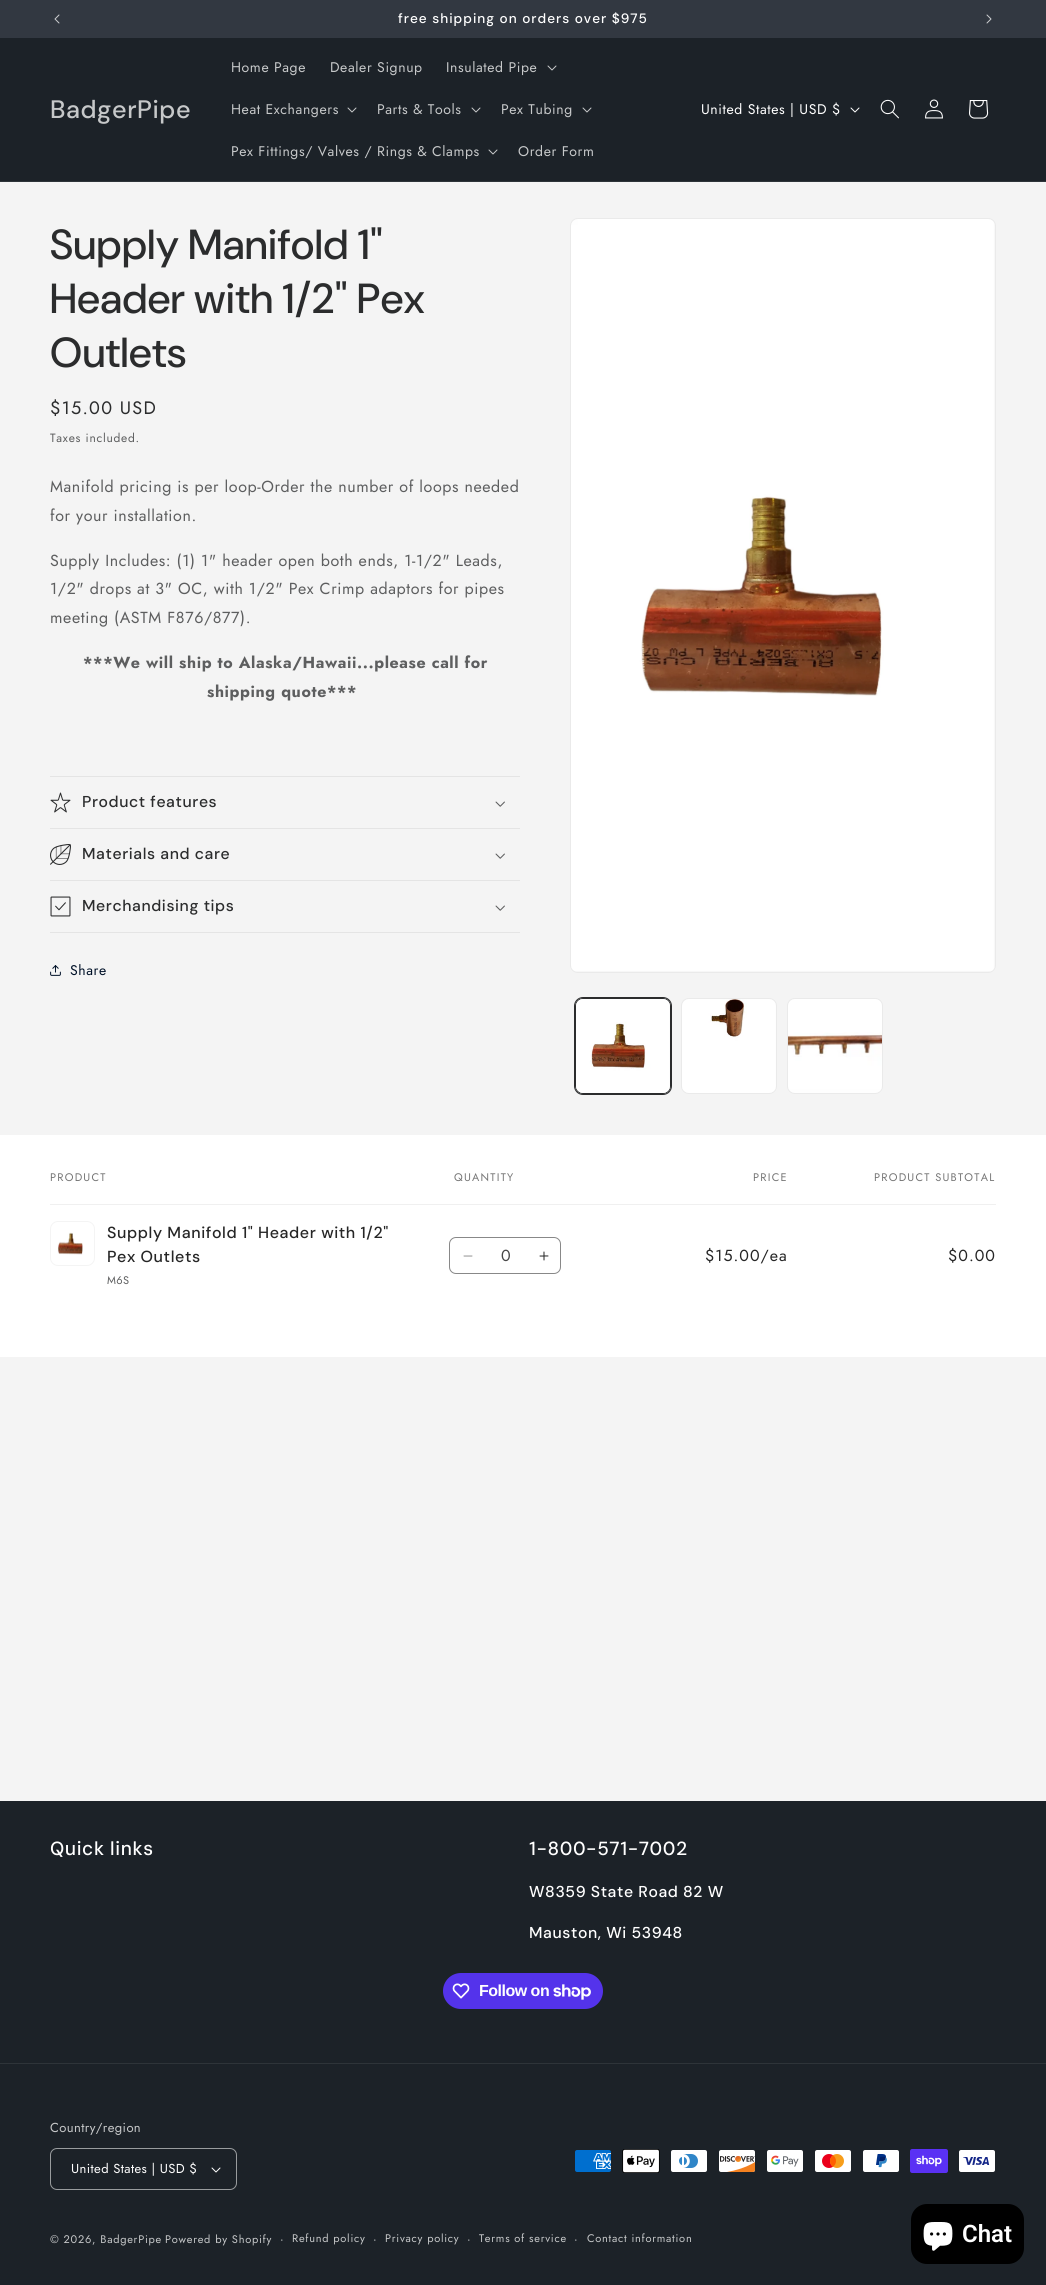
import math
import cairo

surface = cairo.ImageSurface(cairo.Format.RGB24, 1046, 2285)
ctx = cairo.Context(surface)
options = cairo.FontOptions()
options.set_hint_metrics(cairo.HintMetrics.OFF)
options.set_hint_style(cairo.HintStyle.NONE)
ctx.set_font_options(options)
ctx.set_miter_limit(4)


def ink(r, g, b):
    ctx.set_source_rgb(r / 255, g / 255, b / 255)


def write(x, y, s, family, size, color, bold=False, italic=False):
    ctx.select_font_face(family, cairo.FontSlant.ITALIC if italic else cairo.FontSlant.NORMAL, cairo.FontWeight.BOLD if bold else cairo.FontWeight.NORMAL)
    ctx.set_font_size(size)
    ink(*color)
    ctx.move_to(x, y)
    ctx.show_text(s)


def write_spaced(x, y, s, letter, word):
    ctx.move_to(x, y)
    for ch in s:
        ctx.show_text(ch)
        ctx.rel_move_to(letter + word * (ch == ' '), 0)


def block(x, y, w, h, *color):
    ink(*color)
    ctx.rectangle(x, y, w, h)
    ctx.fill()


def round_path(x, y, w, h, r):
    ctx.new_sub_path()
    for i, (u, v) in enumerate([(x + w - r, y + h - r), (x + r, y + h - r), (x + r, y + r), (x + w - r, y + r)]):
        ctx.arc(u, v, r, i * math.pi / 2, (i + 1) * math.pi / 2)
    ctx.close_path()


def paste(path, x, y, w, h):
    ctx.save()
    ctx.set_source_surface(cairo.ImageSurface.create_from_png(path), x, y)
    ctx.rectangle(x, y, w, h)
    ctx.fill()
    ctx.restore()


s1 = dict(family="Jost", size=16, color=(71, 71, 71))
s2 = dict(family="Roboto SemiBold", size=24, color=(255, 255, 255))

ink(244, 244, 244)
ctx.paint()
block(0, 0, 1046, 38, 50, 56, 65)
paste("pic1.png", 54, 14, 6, 10)
ctx.select_font_face("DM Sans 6 Medium")
ctx.set_font_size(13.6)
ink(255, 255, 255)
write_spaced(398, 23, "free shipping on orders over $975", 1, 0)
paste("pic2.png", 986, 14, 6, 10)
block(0, 38, 1046, 143, 28, 34, 40)
block(0, 181, 1046, 1, 46, 52, 57)
ctx.select_font_face("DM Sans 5 Medium")
ctx.set_font_size(25.25)
ink(198, 200, 201)
write_spaced(50, 118, "BadgerPipe", 0.6, 0)
ctx.select_font_face("Jost")
ctx.set_font_size(14)
write_spaced(231, 72, "Home Page", 0.6, 0)
write_spaced(330, 72, "Dealer Signup", 0.6, 0)
write_spaced(446, 72, "Insulated Pipe", 0.6, 0)
paste("pic3.png", 547, 65, 10, 6)
write_spaced(231, 114, "Heat Exchangers", 0.6, 0)
paste("pic3.png", 347, 107, 10, 6)
write_spaced(377, 114, "Parts & Tools", 0.6, 0)
paste("pic3.png", 471, 107, 10, 6)
write_spaced(501, 114, "Pex Tubing", 0.6, 0)
paste("pic3.png", 582, 107, 10, 6)
write_spaced(231, 156, "Pex Fittings/ Valves / Rings & Clamps", 0.6, 0)
paste("pic3.png", 488, 149, 10, 6)
write_spaced(518, 156, "Order Form", 0.6, 0)
ink(255, 255, 255)
write_spaced(701, 114, "United States | USD $", 0.6, 0)
paste("pic4.png", 850, 107, 10, 6)
paste("pic5.png", 880, 99, 19, 20)
paste("pic6.png", 925, 99, 18, 20)
paste("pic7.png", 969, 100, 20, 19)
ctx.select_font_face("DM Sans Medium")
ctx.set_font_size(42)
ink(43, 44, 45)
write_spaced(50, 259, "Supply Manifold 1\"", 0.6, 0)
write_spaced(50, 313, "Header with 1/2\" Pex", 0.6, 0)
write_spaced(50, 367, "Outlets", 0.6, 0)
ctx.select_font_face("Jost")
ctx.set_font_size(18)
write_spaced(50, 414, "$15.00 USD", 1.25, 0)
ctx.set_font_size(12)
ink(93, 94, 95)
write_spaced(50, 442, "Taxes included.", 0.75, 0)
ctx.set_font_size(16)
write_spaced(50, 492, "Manifold pricing is per loop-Order the number of loops needed", 0.6, 0)
write_spaced(50, 521, "for your installation.", 0.6, 0)
write_spaced(50, 566, "Supply Includes: (1) 1\" header open both ends, 1-1/2\" Leads,", 0.6, 0)
write_spaced(50, 594, "1/2\" drops at 3\" OC, with 1/2\" Pex Crimp adaptors for pipes", 0.6, 0)
write_spaced(50, 623, "meeting (ASTM F876/877).", 0.6, 0)
ctx.select_font_face("Jost", cairo.FontSlant.NORMAL, cairo.FontWeight.BOLD)
write_spaced(83, 668, "***We will ship to Alaska/Hawaii...please call for", 0.6, 0)
write_spaced(207, 697, "shipping quote***", 0.6, 0)
block(50, 776, 470, 1, 228, 228, 228)
block(50, 828, 470, 1, 228, 228, 228)
paste("pic8.png", 50, 792, 21, 21)
ctx.select_font_face("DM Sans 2 Medium")
ctx.set_font_size(15.75)
ink(43, 44, 45)
write_spaced(82, 807, "Product features", 0.6, 0)
paste("pic9.png", 495, 801, 10, 6)
block(50, 880, 470, 1, 228, 228, 228)
paste("pic10.png", 50, 844, 21, 21)
ink(43, 44, 45)
write_spaced(82, 859, "Materials and care", 0.6, 0)
paste("pic9.png", 495, 853, 10, 6)
block(50, 932, 470, 1, 228, 228, 228)
paste("pic11.png", 50, 896, 21, 21)
ink(43, 44, 45)
write_spaced(82, 911, "Merchandising tips", 0.6, 0)
paste("pic9.png", 495, 905, 10, 6)
paste("pic12.png", 50, 965, 11, 11)
ctx.select_font_face("Jost")
ctx.set_font_size(14)
ink(0, 17, 40)
write_spaced(70, 975, "Share", 0.6, 0)
round_path(570.5, 218.5, 425, 754, 7.5)
ink(234, 234, 234)
ctx.set_line_width(1)
ctx.stroke()
paste("pic13.png", 571, 219, 424, 753)
round_path(574.5, 997.5, 97, 97, 8.5)
ink(43, 44, 45)
ctx.stroke()
round_path(575.5, 998.5, 95, 95, 7.5)
ctx.stroke()
paste("pic14.png", 576, 999, 94, 94)
round_path(681.5, 998.5, 95, 95, 7.5)
ink(234, 234, 234)
ctx.stroke()
paste("pic15.png", 682, 999, 94, 94)
round_path(787.5, 998.5, 95, 95, 7.5)
ctx.stroke()
paste("pic16.png", 788, 999, 94, 94)
block(0, 1135, 1046, 222, 255, 255, 255)
block(50, 1204, 946, 1, 240, 240, 240)
ctx.set_font_size(11)
ink(117, 117, 117)
write_spaced(50, 1181, "PRODUCT", 1.25, 0)
write_spaced(454, 1181, "QUANTITY", 1.25, 0)
write_spaced(753, 1181, "PRICE", 1.25, 0)
write_spaced(874, 1181, "PRODUCT SUBTOTAL", 1.25, 0)
round_path(50.5, 1221.5, 44, 44, 7.5)
ink(244, 244, 244)
ctx.stroke()
paste("pic17.png", 57, 1232, 26, 23)
ctx.select_font_face("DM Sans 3 Medium")
ctx.set_font_size(16)
ink(38, 38, 38)
write_spaced(107, 1238, "Supply Manifold 1\" Header with 1/2\"", 0.6, 0)
write_spaced(107, 1262, "Pex Outlets", 0.6, 0)
ctx.select_font_face("Jost")
ctx.set_font_size(11)
ink(93, 94, 95)
write_spaced(107, 1284, "M6S", 0.4, 0)
paste("pic18.png", 463, 1255, 10, 2)
paste("pic19.png", 539, 1251, 10, 10)
round_path(449.5, 1237.5, 111, 36, 6.5)
ink(136, 136, 136)
ctx.stroke()
write(501, 1261, "0", **s1)
ink(38, 38, 38)
write_spaced(705, 1261, "$15.00/ea", 1, 0)
write_spaced(948, 1261, "$0.00", 1, 0)
block(0, 1801, 1046, 484, 28, 34, 40)
ctx.select_font_face("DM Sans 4 Medium")
ctx.set_font_size(19)
ink(255, 255, 255)
write_spaced(50, 1855, "Quick links", 0.6, 0)
write_spaced(529, 1855, "1-800-571-7002", 0.6, 0)
ctx.select_font_face("DM Sans 2 Medium")
ctx.set_font_size(15.75)
write_spaced(529, 1897, "W8359 State Road 82 W", 0.6, 0)
write_spaced(529, 1938, "Mauston, Wi 53948", 0.6, 0)
ink(84, 51, 235)
round_path(443, 1973, 160, 36, 18)
ctx.fill()
paste("pic20.png", 452, 1983, 18, 16)
ctx.select_font_face("Liberation Sans", cairo.FontSlant.NORMAL, cairo.FontWeight.BOLD)
ctx.set_font_size(16)
ink(255, 255, 255)
write_spaced(479, 1996, "Follow on", -0.5, 0)
paste("pic21.png", 553, 1984, 38, 16)
block(0, 2063, 1046, 1, 46, 52, 57)
ctx.select_font_face("Jost")
ctx.set_font_size(13)
ink(198, 200, 201)
write_spaced(50, 2132, "Country/region", 0.4, 0)
paste("pic4.png", 211, 2167, 10, 6)
round_path(50.5, 2148.5, 186, 41, 6.5)
ink(153, 156, 158)
ctx.stroke()
ink(255, 255, 255)
write_spaced(71, 2173, "United States | USD $", 0.4, 0)
paste("pic22.png", 575, 2150, 36, 22)
paste("pic23.png", 622, 2149, 38, 24)
paste("pic24.png", 671, 2150, 36, 22)
paste("pic25.png", 719, 2150, 36, 22)
paste("pic26.png", 767, 2150, 36, 22)
paste("pic27.png", 815, 2150, 36, 22)
paste("pic28.png", 863, 2150, 36, 22)
paste("pic29.png", 910, 2149, 38, 24)
paste("pic30.png", 959, 2150, 36, 22)
ctx.set_font_size(11)
ink(198, 200, 201)
write_spaced(50, 2243, "© 2026, BadgerPipe", 0.75, 0)
write_spaced(165, 2243, "Powered by Shopify", 0.75, 0)
ctx.set_font_size(12)
write_spaced(280, 2243, "·", 0.75, 0)
ctx.set_font_size(11)
write_spaced(292, 2242, "Refund policy", 0.75, 0)
ctx.set_font_size(12)
write_spaced(373, 2243, "·", 0.75, 0)
ctx.set_font_size(11)
write_spaced(385, 2242, "Privacy policy", 0.75, 0)
ctx.set_font_size(12)
write_spaced(467, 2243, "·", 0.75, 0)
ctx.set_font_size(11)
write_spaced(479, 2242, "Terms of service", 0.75, 0)
ctx.set_font_size(12)
write_spaced(574, 2243, "·", 0.75, 0)
ctx.set_font_size(11)
write_spaced(587, 2242, "Contact information", 0.75, 0)
ink(0, 0, 0)
round_path(911, 2204, 113, 60, 16)
ctx.fill()
paste("pic31.png", 923, 2222, 30, 29)
write(962, 2242, "Chat", **s2)
surface.write_to_png("screenshot.png")
